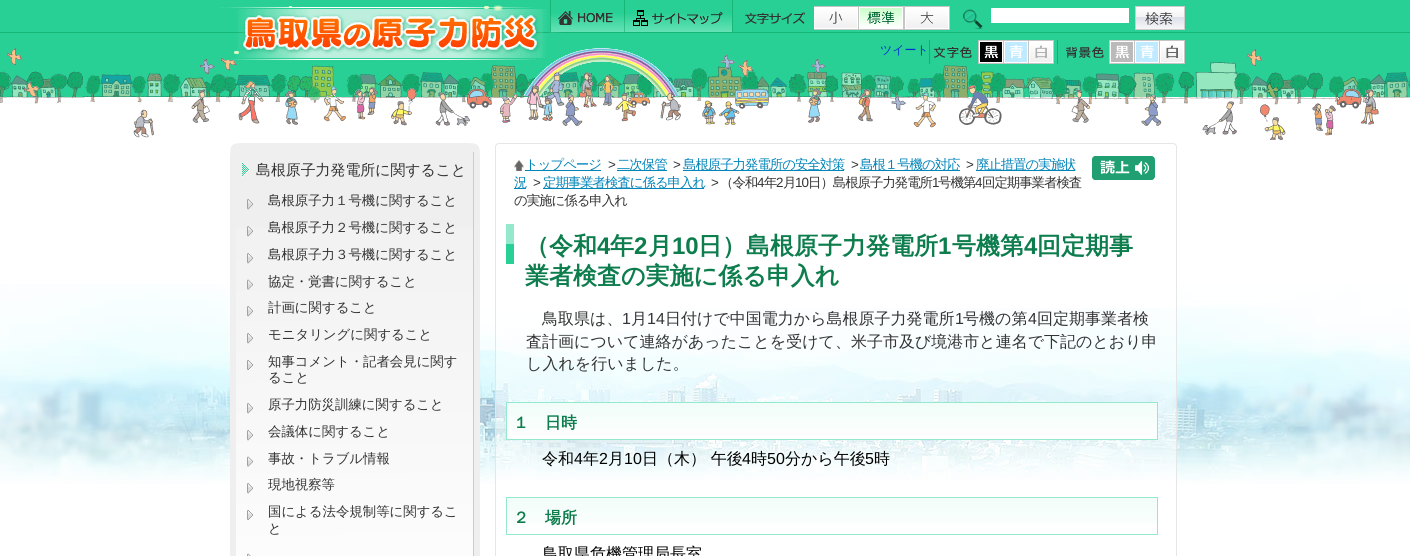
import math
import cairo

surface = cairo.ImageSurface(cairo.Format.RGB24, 1410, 556)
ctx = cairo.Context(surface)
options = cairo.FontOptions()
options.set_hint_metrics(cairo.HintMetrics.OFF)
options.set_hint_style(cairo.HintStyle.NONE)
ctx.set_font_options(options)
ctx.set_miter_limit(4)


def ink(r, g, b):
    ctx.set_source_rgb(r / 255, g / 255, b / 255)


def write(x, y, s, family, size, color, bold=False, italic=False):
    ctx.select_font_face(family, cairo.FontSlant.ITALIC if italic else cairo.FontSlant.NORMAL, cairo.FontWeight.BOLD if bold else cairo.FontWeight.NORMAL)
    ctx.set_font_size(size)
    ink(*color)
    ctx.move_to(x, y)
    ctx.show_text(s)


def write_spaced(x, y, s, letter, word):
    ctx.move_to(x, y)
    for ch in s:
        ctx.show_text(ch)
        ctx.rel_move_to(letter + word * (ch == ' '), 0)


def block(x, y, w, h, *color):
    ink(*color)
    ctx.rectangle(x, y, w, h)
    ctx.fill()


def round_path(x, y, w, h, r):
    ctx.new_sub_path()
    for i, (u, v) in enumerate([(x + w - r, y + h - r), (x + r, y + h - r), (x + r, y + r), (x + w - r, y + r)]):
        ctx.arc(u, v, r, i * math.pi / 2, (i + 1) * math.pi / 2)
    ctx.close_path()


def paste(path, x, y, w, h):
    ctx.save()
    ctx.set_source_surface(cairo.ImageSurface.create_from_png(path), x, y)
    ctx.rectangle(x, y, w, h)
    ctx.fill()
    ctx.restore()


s1 = dict(family="WenQuanYi Zen Hei Medium", size=12, color=(0, 51, 204))
s2 = dict(family="WenQuanYi Zen Hei Medium", size=14.9, color=(51, 51, 51))
s3 = dict(family="WenQuanYi Zen Hei Medium", size=13.4, color=(51, 51, 51))
s4 = dict(family="WenQuanYi Zen Hei", size=24, color=(13, 125, 77), bold=True)
s5 = dict(family="Liberation Sans", size=24, color=(13, 125, 77), bold=True)
s6 = dict(family="WenQuanYi Zen Hei Medium", size=16, color=(51, 51, 51))
s7 = dict(family="Liberation Sans", size=16, color=(51, 51, 51))
s8 = dict(family="WenQuanYi Zen Hei", size=16, color=(13, 125, 77), bold=True)
s9 = dict(family="WenQuanYi Zen Hei Medium", size=16, color=(0, 0, 0))
s10 = dict(family="Liberation Sans", size=16, color=(0, 0, 0))

ink(255, 255, 255)
ctx.paint()
paste("pic1.png", 0, 0, 1410, 105)
paste("pic2.png", 6, 5, 1373, 135)
paste("pic3.png", 225, 5, 318, 55)
paste("pic4.png", 550, 0, 75, 33)
paste("pic5.png", 625, 0, 108, 32)
paste("pic6.png", 745, 12, 60, 12)
paste("pic7.png", 814, 6, 45, 24)
paste("pic8.png", 859, 6, 45, 24)
paste("pic9.png", 904, 6, 46, 24)
paste("pic10.png", 963, 9, 20, 20)
block(991, 8, 138, 15, 255, 255, 255)
paste("pic11.png", 1135, 6, 50, 24)
write(880, 54, "ツイート", **s1)
paste("pic12.png", 929, 40, 43, 24)
paste("pic13.png", 978, 40, 26, 24)
paste("pic14.png", 1004, 40, 25, 24)
paste("pic15.png", 1029, 40, 25, 24)
paste("pic16.png", 1057, 40, 47, 24)
paste("pic17.png", 1109, 40, 26, 24)
paste("pic14.png", 1135, 40, 25, 24)
paste("pic18.png", 1160, 40, 25, 24)
paste("pic19.png", 0, 284, 1410, 200)
block(230, 143, 250, 413, 239, 239, 239)
paste("pic20.png", 230, 143, 250, 11)
gradient = cairo.LinearGradient(354, 152, 355, 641)
gradient.add_color_stop_rgba(0, 0.937, 0.937, 0.937, 1)
gradient.add_color_stop_rgba(1, 1, 1, 1, 1)
ctx.set_source(gradient)
ctx.rectangle(236, 228, 237, 328)
ctx.fill()
block(473, 152, 1, 404, 204, 204, 204)
paste("pic21.png", 242, 162, 8, 15)
write(256, 175, "島根原子力発電所に関すること", **s2)
paste("pic22.png", 247, 199, 6, 11)
write(268, 205, "島根原子力１号機に関すること", **s3)
paste("pic23.png", 247, 226, 6, 11)
write(268, 232, "島根原子力２号機に関すること", **s3)
paste("pic24.png", 247, 253, 6, 11)
write(268, 259, "島根原子力３号機に関すること", **s3)
paste("pic25.png", 247, 279, 6, 11)
write(268, 286, "協定・覚書に関すること", **s3)
paste("pic26.png", 247, 306, 6, 11)
write(268, 312, "計画に関すること", **s3)
paste("pic27.png", 247, 333, 6, 11)
write(268, 339, "モニタリングに関すること", **s3)
paste("pic28.png", 247, 360, 6, 10)
write(268, 366, "知事コメント・記者会見に関す", **s3)
write(268, 382, "ること", **s3)
paste("pic29.png", 247, 403, 6, 11)
write(268, 409, "原子力防災訓練に関すること", **s3)
paste("pic30.png", 247, 430, 6, 11)
write(268, 436, "会議体に関すること", **s3)
paste("pic31.png", 247, 456, 6, 11)
write(268, 463, "事故・トラブル情報", **s3)
paste("pic32.png", 247, 483, 6, 11)
write(268, 489, "現地視察等", **s3)
paste("pic33.png", 247, 510, 6, 10)
write(268, 516, "国による法令規制等に関するこ", **s3)
write(268, 533, "と", **s3)
paste("pic34.png", 247, 553, 4, 3)
ink(255, 255, 255)
round_path(495, 143, 682, 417, 4)
ctx.fill()
paste("pic35.png", 496, 308, 680, 172)
round_path(495.5, 143.5, 681, 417, 3.5)
ink(230, 230, 230)
ctx.set_line_width(1)
ctx.stroke()
paste("pic36.png", 514, 160, 10, 11)
block(525, 170, 76, 1, 4, 133, 186)
write_spaced(525, 169, "トップページ", -1, 0)
ctx.select_font_face("Liberation Sans")
ink(51, 51, 51)
write_spaced(608, 169, ">", -1, 0)
block(617, 170, 50, 1, 4, 133, 186)
ctx.select_font_face("WenQuanYi Zen Hei Medium")
write_spaced(617, 169, "二次保管", -1, 0)
ctx.select_font_face("Liberation Sans")
ink(51, 51, 51)
write_spaced(673, 169, ">", -1, 0)
block(683, 170, 161, 1, 4, 133, 186)
ctx.select_font_face("WenQuanYi Zen Hei Medium")
write_spaced(683, 169, "島根原子力発電所の安全対策", -1, 0)
ctx.select_font_face("Liberation Sans")
ink(51, 51, 51)
write_spaced(851, 169, ">", -1, 0)
block(860, 170, 100, 1, 4, 133, 186)
ctx.select_font_face("WenQuanYi Zen Hei Medium")
write_spaced(860, 169, "島根１号機の対応", -1, 0)
ctx.select_font_face("Liberation Sans")
ink(51, 51, 51)
write_spaced(966, 169, ">", -1, 0)
block(976, 170, 99, 1, 4, 133, 186)
ctx.select_font_face("WenQuanYi Zen Hei Medium")
write_spaced(976, 169, "廃止措置の実施状", -1, 0)
paste("pic37.png", 1092, 156, 63, 24)
block(514, 188, 12, 1, 4, 133, 186)
write_spaced(514, 187, "況", -1, 0)
ctx.select_font_face("Liberation Sans")
ink(51, 51, 51)
write_spaced(533, 187, ">", -1, 0)
block(543, 188, 161, 1, 4, 133, 186)
ctx.select_font_face("WenQuanYi Zen Hei Medium")
write_spaced(543, 187, "定期事業者検査に係る申入れ", -1, 0)
ctx.select_font_face("Liberation Sans")
ink(51, 51, 51)
write_spaced(711, 187, ">", -1, 0)
ctx.select_font_face("WenQuanYi Zen Hei Medium")
write_spaced(720, 187, "（令和", -1, 0)
ctx.select_font_face("Liberation Sans")
write_spaced(757, 187, "4", -1, 0)
ctx.select_font_face("WenQuanYi Zen Hei Medium")
write_spaced(764, 187, "年", -1, 0)
ctx.select_font_face("Liberation Sans")
write_spaced(776, 187, "2", -1, 0)
ctx.select_font_face("WenQuanYi Zen Hei Medium")
write_spaced(783, 187, "月", -1, 0)
ctx.select_font_face("Liberation Sans")
write_spaced(795, 187, "10", -1, 0)
ctx.select_font_face("WenQuanYi Zen Hei Medium")
write_spaced(808, 187, "日）島根原子力発電所", -1, 0)
ctx.select_font_face("Liberation Sans")
write_spaced(932, 187, "1", -1, 0)
ctx.select_font_face("WenQuanYi Zen Hei Medium")
write_spaced(938, 187, "号機第", -1, 0)
ctx.select_font_face("Liberation Sans")
write_spaced(975, 187, "4", -1, 0)
ctx.select_font_face("WenQuanYi Zen Hei Medium")
write_spaced(982, 187, "回定期事業者検査", -1, 0)
write_spaced(514, 205, "の実施に係る申入れ", -1, 0)
paste("pic38.png", 506, 224, 8, 40)
write(525, 254, "（令和", **s4)
write(597, 254, "4", **s5)
write(610, 254, "年", **s4)
write(634, 254, "2", **s5)
write(648, 254, "月", **s4)
write(672, 254, "10", **s5)
write(698, 254, "日）島根原子力発電所", **s4)
write(938, 254, "1", **s5)
write(952, 254, "号機第", **s4)
write(1024, 254, "4", **s5)
write(1037, 254, "回定期事", **s4)
write(525, 284, "業者検査の実施に係る申入れ", **s4)
write(542, 324, "鳥取県は、", **s6)
write(622, 324, "1", **s7)
write(631, 324, "月", **s6)
write(647, 324, "14", **s7)
write(665, 324, "日付けで中国電力から島根原子力発電所", **s6)
write(955, 324, "1", **s7)
write(963, 324, "号機の第", **s6)
write(1028, 324, "4", **s7)
write(1037, 324, "回定期事業者検", **s6)
write(526, 347, "査計画について連絡があったことを受けて、米子市及び境港市と連名で下記のとおり申", **s6)
write(526, 369, "し入れを行いました。", **s6)
paste("pic39.png", 507, 403, 650, 36)
ctx.rectangle(506.5, 402.5, 651, 37)
ink(148, 232, 203)
ctx.stroke()
write(513, 428, "１　日時", **s8)
write(542, 464, "令和", **s9)
write(574, 464, "4", **s10)
write(583, 464, "年", **s9)
write(599, 464, "2", **s10)
write(608, 464, "月", **s9)
write(624, 464, "10", **s10)
write(642, 464, "日（木） 午後", **s9)
write(742, 464, "4", **s10)
write(751, 464, "時", **s9)
write(767, 464, "50", **s10)
write(785, 464, "分から午後", **s9)
write(865, 464, "5", **s10)
write(874, 464, "時", **s9)
paste("pic40.png", 507, 498, 650, 26)
ctx.rectangle(506.5, 497.5, 651, 37)
ink(148, 232, 203)
ctx.stroke()
write(513, 523, "２　場所", **s8)
write(542, 559, "鳥取県危機管理局長室", **s9)
surface.write_to_png("screenshot.png")
